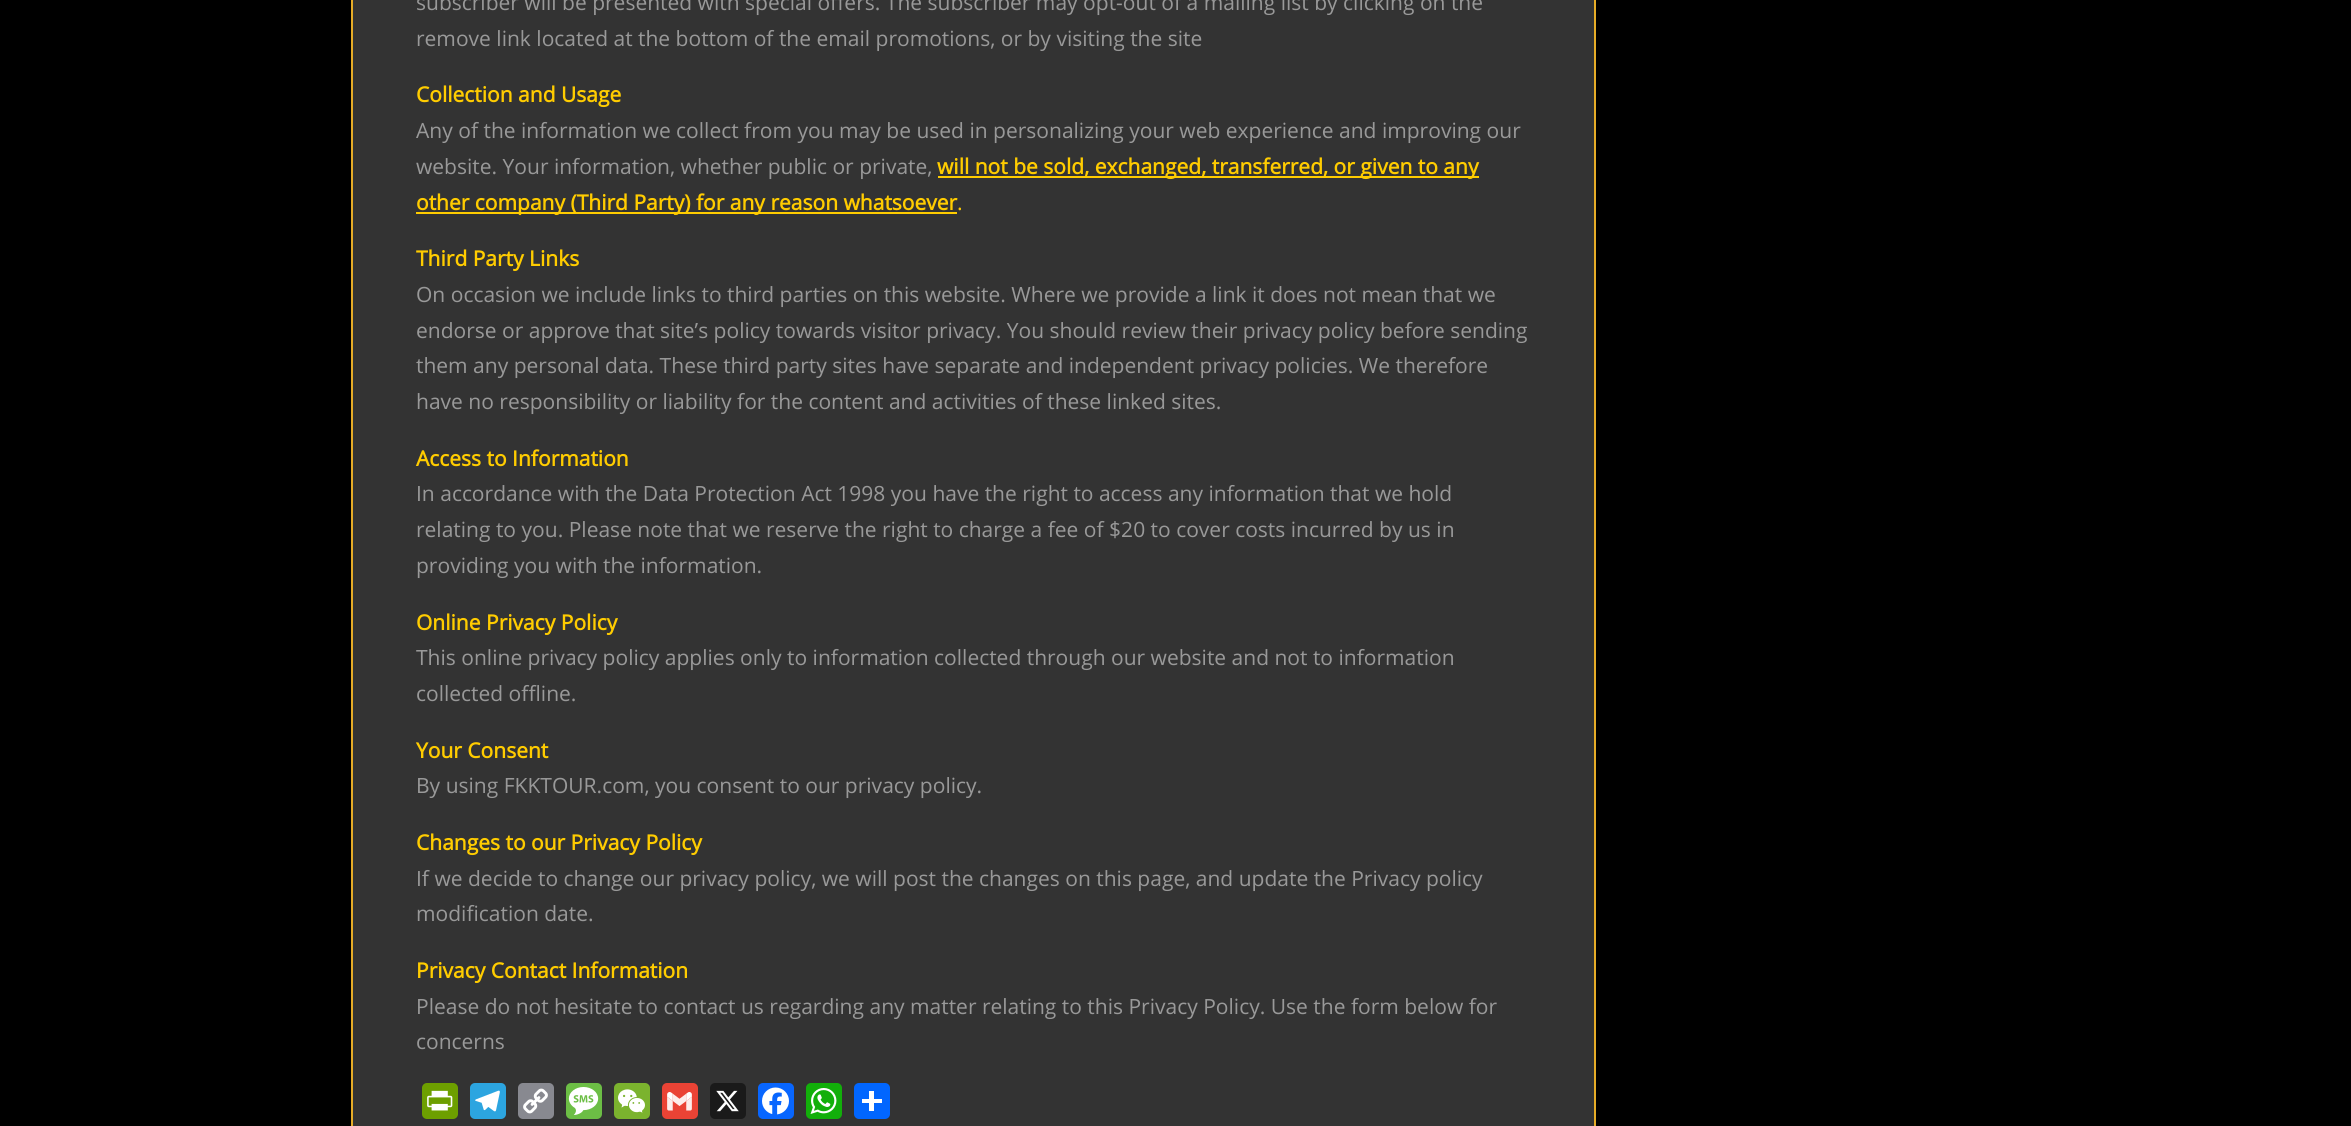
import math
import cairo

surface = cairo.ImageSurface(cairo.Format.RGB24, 2351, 1126)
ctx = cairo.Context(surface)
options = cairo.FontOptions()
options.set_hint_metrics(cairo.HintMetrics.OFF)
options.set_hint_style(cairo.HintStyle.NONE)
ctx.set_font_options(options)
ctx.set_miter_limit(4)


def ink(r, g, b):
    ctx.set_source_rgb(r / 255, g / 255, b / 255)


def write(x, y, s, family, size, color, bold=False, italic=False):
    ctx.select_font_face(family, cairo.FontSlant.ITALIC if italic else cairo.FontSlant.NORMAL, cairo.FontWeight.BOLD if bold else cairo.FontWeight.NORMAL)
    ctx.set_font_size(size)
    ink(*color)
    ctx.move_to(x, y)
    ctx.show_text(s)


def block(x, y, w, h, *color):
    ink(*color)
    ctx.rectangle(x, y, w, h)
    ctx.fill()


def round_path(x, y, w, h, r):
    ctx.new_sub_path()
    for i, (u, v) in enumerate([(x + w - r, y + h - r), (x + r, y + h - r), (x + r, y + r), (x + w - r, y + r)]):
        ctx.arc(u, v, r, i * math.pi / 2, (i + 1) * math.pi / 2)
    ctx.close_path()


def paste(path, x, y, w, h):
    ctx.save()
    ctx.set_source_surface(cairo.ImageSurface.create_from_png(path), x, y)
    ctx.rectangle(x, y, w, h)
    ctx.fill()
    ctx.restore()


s1 = dict(family="Open Sans", size=21, color=(153, 153, 153))
s2 = dict(family="Open Sans", size=21, color=(255, 204, 0), bold=True)
s3 = dict(family="Open Sans", size=21, color=(255, 204, 0))

ink(0, 0, 0)
ctx.paint()
ink(51, 51, 51)
ctx.rectangle(352, -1, 1243, 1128)
ctx.fill_preserve()
ink(230, 172, 39)
ctx.stroke()
write(416, 10, "subscriber will be presented with special offers. The subscriber may opt-out of a mailing list by clicking on the", **s1)
write(416, 46, "remove link located at the bottom of the email promotions, or by visiting the site", **s1)
write(416, 102, "Collection and Usage", **s2)
write(416, 138, "Any of the information we collect from you may be used in personalizing your web experience and improving our", **s1)
write(416, 174, "website. Your information, whether public or private,", **s1)
block(938, 176, 541, 2, 255, 204, 0)
write(937, 174, "will not be sold, exchanged, transferred, or given to any", **s2)
block(416, 212, 541, 2, 255, 204, 0)
write(416, 210, "other company (Third Party) for any reason whatsoever", **s2)
write(957, 210, ".", **s3)
write(416, 266, "Third Party Links", **s2)
write(416, 302, "On occasion we include links to third parties on this website. Where we provide a link it does not mean that we", **s1)
write(416, 338, "endorse or approve that site’s policy towards visitor privacy. You should review their privacy policy before sending", **s1)
write(416, 373, "them any personal data. These third party sites have separate and independent privacy policies. We therefore", **s1)
write(416, 409, "have no responsibility or liability for the content and activities of these linked sites.", **s1)
write(416, 466, "Access to Information", **s2)
write(416, 501, "In accordance with the Data Protection Act 1998 you have the right to access any information that we hold", **s1)
write(416, 537, "relating to you. Please note that we reserve the right to charge a fee of $20 to cover costs incurred by us in", **s1)
write(416, 573, "providing you with the information.", **s1)
write(416, 630, "Online Privacy Policy", **s2)
write(416, 665, "This online privacy policy applies only to information collected through our website and not to information", **s1)
write(416, 701, "collected offline.", **s1)
write(416, 758, "Your Consent", **s2)
write(416, 793, "By using FKKTOUR.com, you consent to our privacy policy.", **s1)
write(416, 850, "Changes to our Privacy Policy", **s2)
write(416, 886, "If we decide to change our privacy policy, we will post the changes on this page, and update the Privacy policy", **s1)
write(416, 921, "modification date.", **s1)
write(416, 978, "Privacy Contact Information", **s2)
write(416, 1014, "Please do not hesitate to contact us regarding any matter relating to this Privacy Policy. Use the form below for", **s1)
write(416, 1049, "concerns", **s1)
ink(109, 159, 0)
round_path(422, 1083, 36, 36, 5)
ctx.fill()
paste("pic1.png", 427, 1090, 26, 21)
ink(44, 165, 224)
round_path(470, 1083, 36, 36, 5)
ctx.fill()
paste("pic2.png", 475, 1090, 25, 22)
ink(136, 137, 144)
round_path(518, 1083, 36, 36, 5)
ctx.fill()
paste("pic3.png", 523, 1088, 25, 26)
ink(108, 190, 69)
round_path(566, 1083, 36, 36, 5)
ctx.fill()
paste("pic4.png", 568, 1087, 31, 28)
ink(123, 179, 46)
round_path(614, 1083, 36, 36, 5)
ctx.fill()
paste("pic5.png", 618, 1089, 27, 24)
ink(234, 67, 53)
round_path(662, 1083, 36, 36, 5)
ctx.fill()
paste("pic6.png", 667, 1092, 25, 19)
ink(26, 26, 26)
round_path(710, 1083, 36, 36, 5)
ctx.fill()
paste("pic7.png", 716, 1090, 23, 22)
ink(8, 102, 255)
round_path(758, 1083, 36, 36, 5)
ctx.fill()
paste("pic8.png", 762, 1087, 27, 28)
ink(18, 175, 10)
round_path(806, 1083, 36, 36, 5)
ctx.fill()
paste("pic9.png", 810, 1088, 27, 26)
ink(1, 102, 255)
round_path(854, 1083, 36, 36, 5)
ctx.fill()
block(869, 1091, 5, 20, 255, 255, 255)
block(862, 1099, 20, 4, 255, 255, 255)
surface.write_to_png("screenshot.png")
